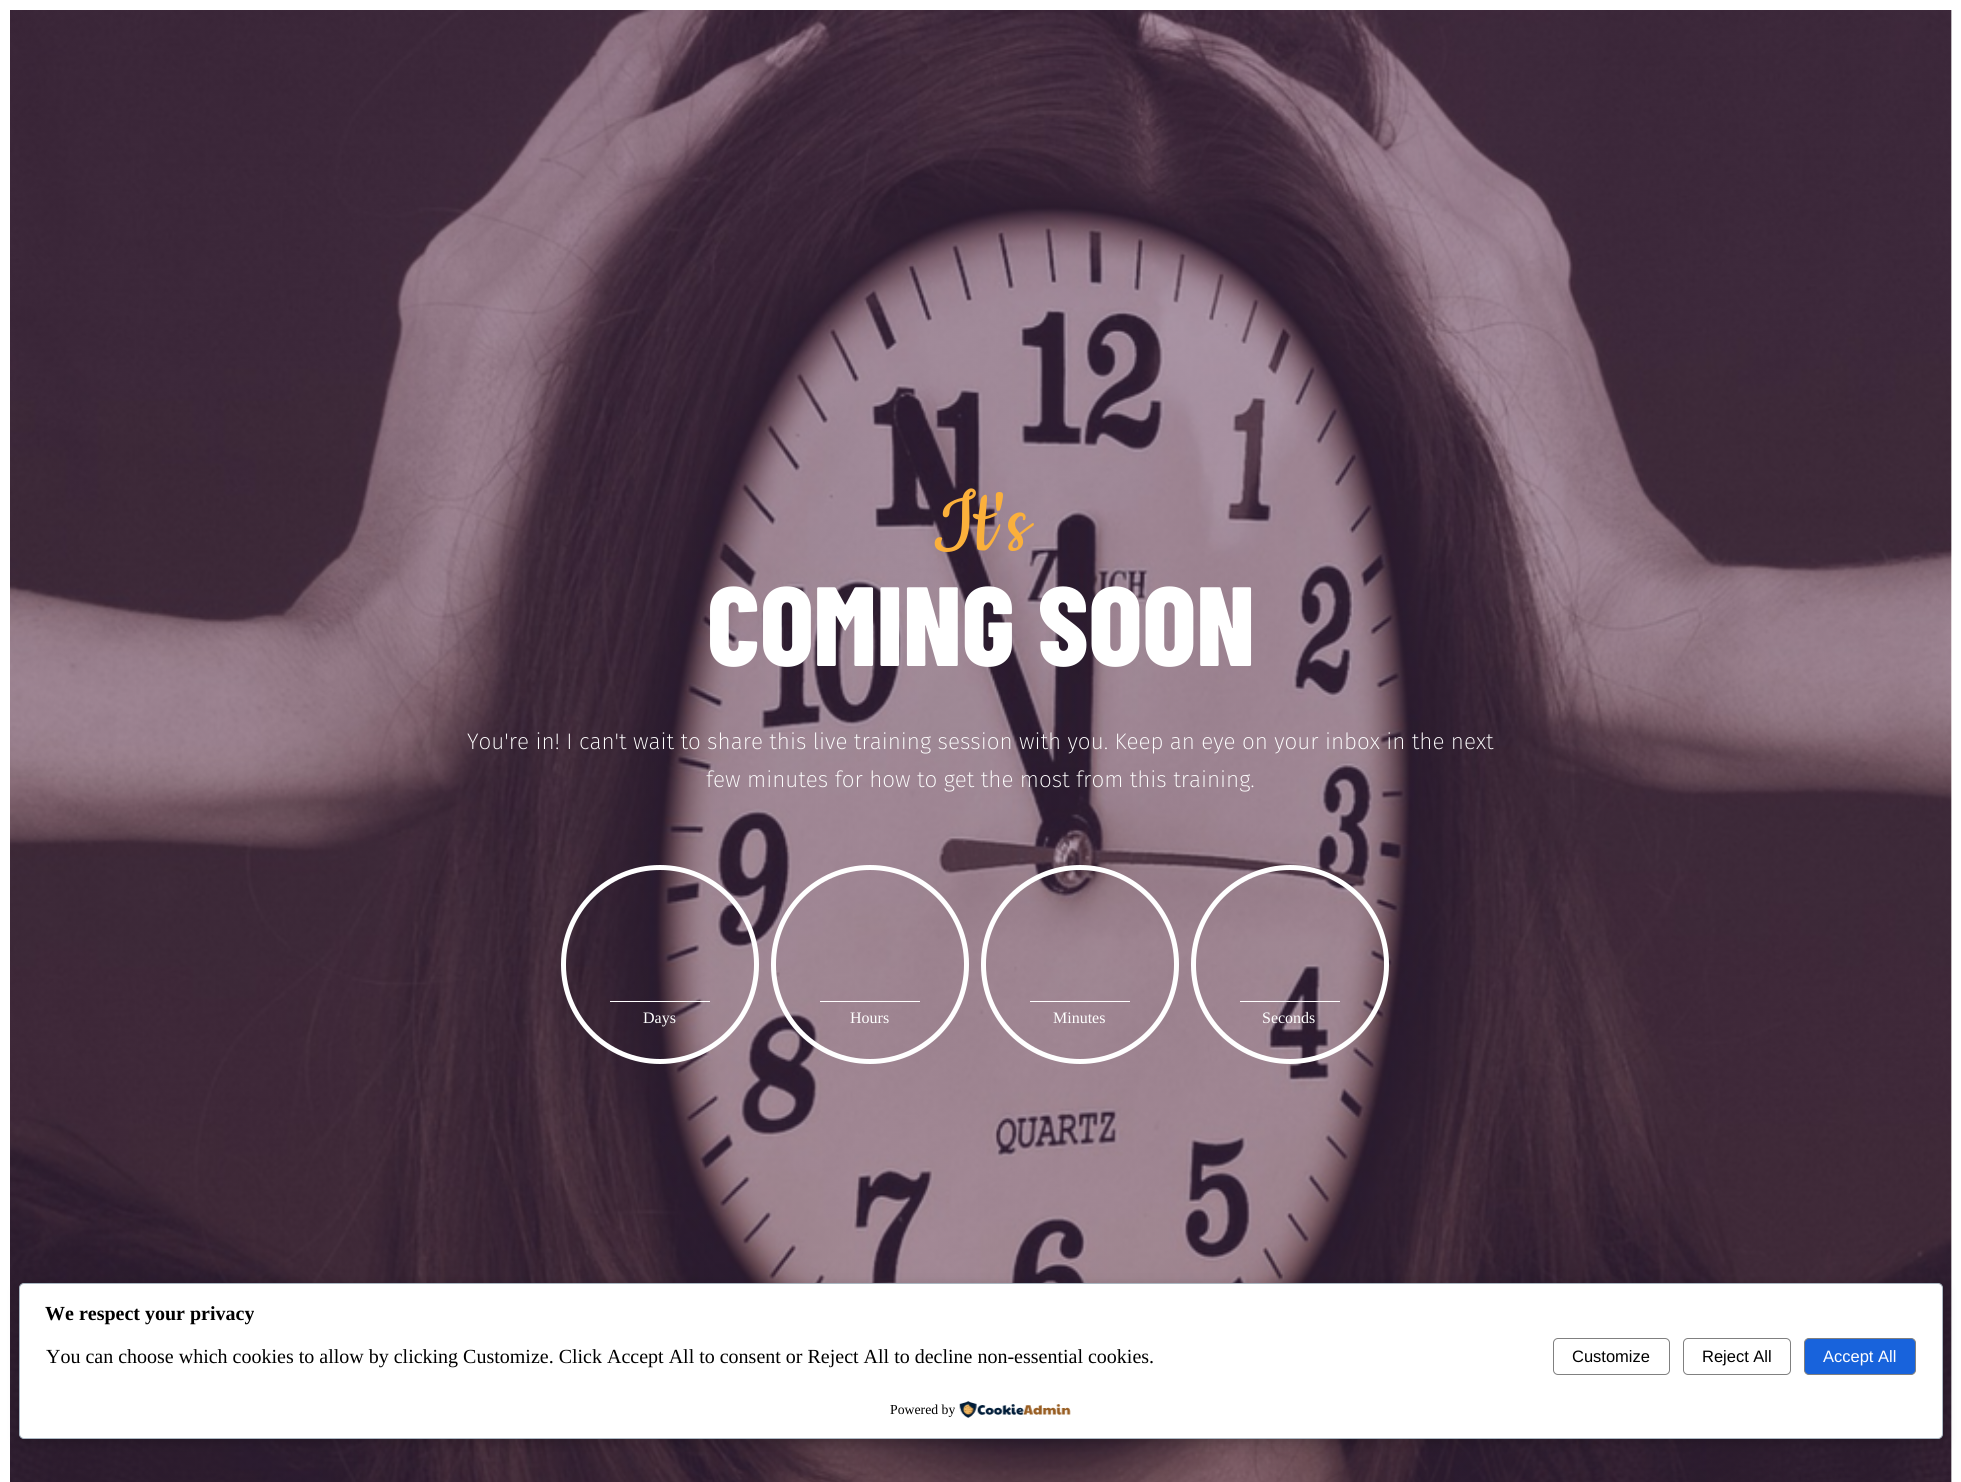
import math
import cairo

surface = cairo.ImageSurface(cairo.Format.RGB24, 1961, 1482)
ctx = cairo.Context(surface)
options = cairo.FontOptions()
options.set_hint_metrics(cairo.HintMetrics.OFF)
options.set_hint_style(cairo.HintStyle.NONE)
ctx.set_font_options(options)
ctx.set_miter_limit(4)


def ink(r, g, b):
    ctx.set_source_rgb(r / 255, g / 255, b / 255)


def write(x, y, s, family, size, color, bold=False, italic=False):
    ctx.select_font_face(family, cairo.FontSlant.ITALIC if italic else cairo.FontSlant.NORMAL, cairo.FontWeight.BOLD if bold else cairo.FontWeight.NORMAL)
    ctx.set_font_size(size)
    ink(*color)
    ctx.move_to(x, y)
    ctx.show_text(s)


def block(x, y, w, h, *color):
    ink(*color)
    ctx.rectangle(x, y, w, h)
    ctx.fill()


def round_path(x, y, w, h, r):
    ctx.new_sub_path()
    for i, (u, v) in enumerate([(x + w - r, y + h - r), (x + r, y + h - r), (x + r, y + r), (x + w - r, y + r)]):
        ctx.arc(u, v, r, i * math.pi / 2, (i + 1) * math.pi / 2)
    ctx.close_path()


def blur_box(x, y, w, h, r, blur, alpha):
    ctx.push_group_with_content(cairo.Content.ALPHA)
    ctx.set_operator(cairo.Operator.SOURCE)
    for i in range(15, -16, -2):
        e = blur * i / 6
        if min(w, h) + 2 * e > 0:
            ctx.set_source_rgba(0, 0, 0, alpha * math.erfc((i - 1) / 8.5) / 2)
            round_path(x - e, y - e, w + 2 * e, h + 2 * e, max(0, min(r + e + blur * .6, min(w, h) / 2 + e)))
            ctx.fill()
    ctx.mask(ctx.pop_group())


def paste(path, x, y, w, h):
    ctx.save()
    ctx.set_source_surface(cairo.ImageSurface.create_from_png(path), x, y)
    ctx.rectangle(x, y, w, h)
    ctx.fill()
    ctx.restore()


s1 = dict(family="Cookie", size=100, color=(251, 176, 59))
s2 = dict(family="Barlow Condensed ExtraBold", size=112.5, color=(255, 255, 255))
s3 = dict(family="Fira Sans ExtraLight", size=22.5, color=(255, 255, 255))
s4 = dict(family="Liberation Serif", size=16, color=(255, 255, 255))
s5 = dict(family="Liberation Serif", size=20, color=(0, 0, 0), bold=True)
s6 = dict(family="Liberation Serif", size=20, color=(0, 0, 0))
s7 = dict(family="Liberation Sans", size=16.5, color=(0, 0, 0))
s8 = dict(family="Liberation Sans", size=16.5, color=(255, 255, 255))
s9 = dict(family="Liberation Serif", size=13.75, color=(0, 0, 0))

ink(255, 255, 255)
ctx.paint()
paste("pic1.png", 10, 10, 1942, 1472)
write(932, 550, "It's", **s1)
write(707, 666, "COMING SOON", **s2)
write(467, 749, "You're in! I can't wait to share this live training session with you. Keep an eye on your inbox in the next", **s3)
write(706, 787, "few minutes for how to get the most from this training.", **s3)
round_path(563.5, 867.5, 193, 194, 96.5)
ctx.set_line_width(5)
ctx.stroke()
block(610, 1001, 100, 1, 255, 255, 255)
write(643, 1023, "Days", **s4)
round_path(773.5, 867.5, 193, 194, 96.5)
ctx.stroke()
block(820, 1001, 100, 1, 255, 255, 255)
write(850, 1023, "Hours", **s4)
round_path(983.5, 867.5, 193, 194, 96.5)
ctx.stroke()
block(1030, 1001, 100, 1, 255, 255, 255)
write(1053, 1023, "Minutes", **s4)
round_path(1193.5, 867.5, 193, 194, 96.5)
ctx.stroke()
block(1240, 1001, 100, 1, 255, 255, 255)
write(1262, 1023, "Seconds", **s4)
ink(0, 0, 0)
blur_box(20, 1286, 1924, 157, 5, 6, 0.2)
ink(255, 255, 255)
round_path(19.5, 1283.5, 1923, 155, 4.5)
ctx.fill_preserve()
ink(171, 184, 195)
ctx.set_line_width(1)
ctx.stroke()
write(45, 1320, "We respect your privacy", **s5)
write(46, 1363, "You can choose which cookies to allow by clicking Customize. Click Accept All to consent or Reject All to decline non-essential cookies.", **s6)
round_path(1553.5, 1338.5, 116, 36, 4.5)
ink(128, 128, 128)
ctx.stroke()
write(1572, 1362, "Customize", **s7)
round_path(1683.5, 1338.5, 107, 36, 4.5)
ink(128, 128, 128)
ctx.stroke()
write(1702, 1362, "Reject All", **s7)
ink(24, 99, 220)
round_path(1804.5, 1338.5, 111, 36, 4.5)
ctx.fill_preserve()
ink(128, 128, 128)
ctx.stroke()
write(1823, 1362, "Accept All", **s8)
write(890, 1414, "Powered by", **s9)
paste("pic2.png", 959, 1401, 112, 17)
surface.write_to_png("screenshot.png")
